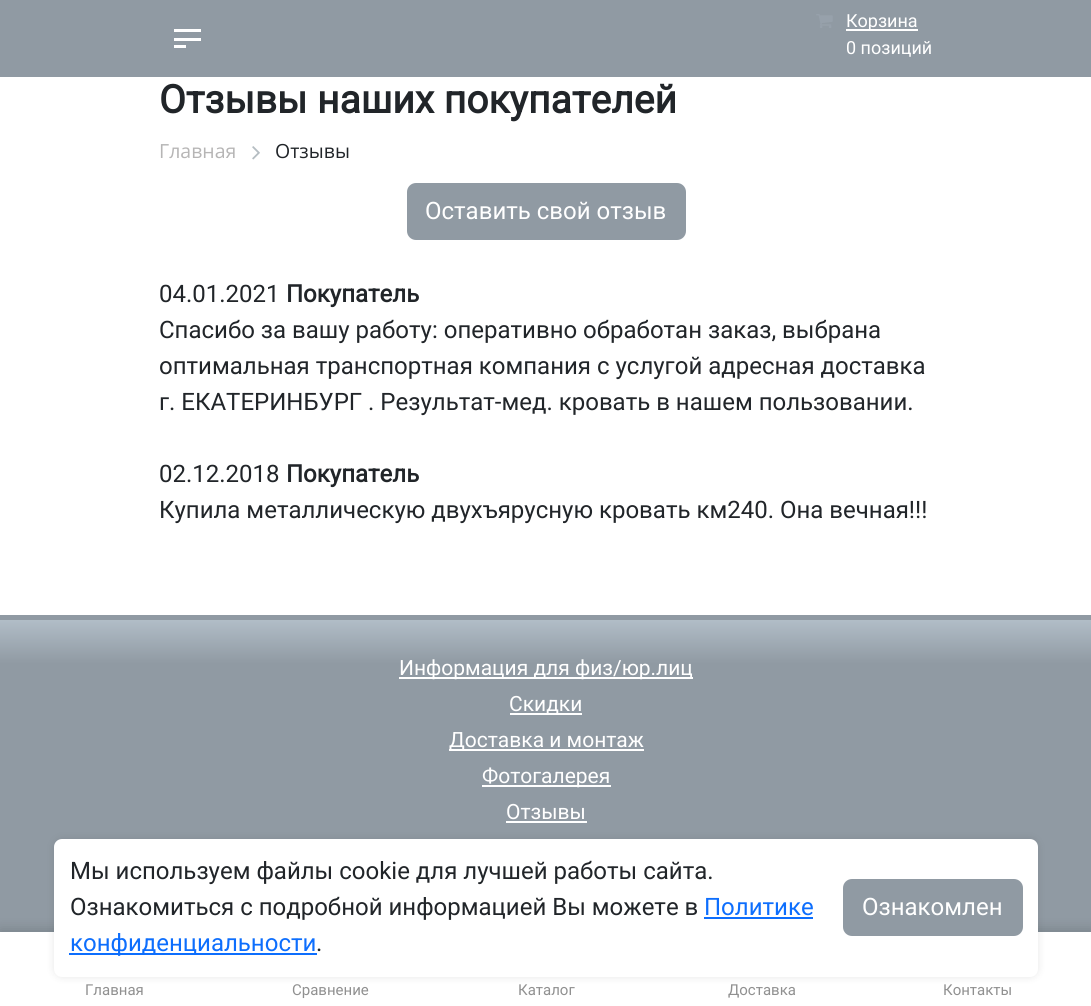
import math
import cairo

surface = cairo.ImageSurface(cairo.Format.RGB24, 1091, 1006)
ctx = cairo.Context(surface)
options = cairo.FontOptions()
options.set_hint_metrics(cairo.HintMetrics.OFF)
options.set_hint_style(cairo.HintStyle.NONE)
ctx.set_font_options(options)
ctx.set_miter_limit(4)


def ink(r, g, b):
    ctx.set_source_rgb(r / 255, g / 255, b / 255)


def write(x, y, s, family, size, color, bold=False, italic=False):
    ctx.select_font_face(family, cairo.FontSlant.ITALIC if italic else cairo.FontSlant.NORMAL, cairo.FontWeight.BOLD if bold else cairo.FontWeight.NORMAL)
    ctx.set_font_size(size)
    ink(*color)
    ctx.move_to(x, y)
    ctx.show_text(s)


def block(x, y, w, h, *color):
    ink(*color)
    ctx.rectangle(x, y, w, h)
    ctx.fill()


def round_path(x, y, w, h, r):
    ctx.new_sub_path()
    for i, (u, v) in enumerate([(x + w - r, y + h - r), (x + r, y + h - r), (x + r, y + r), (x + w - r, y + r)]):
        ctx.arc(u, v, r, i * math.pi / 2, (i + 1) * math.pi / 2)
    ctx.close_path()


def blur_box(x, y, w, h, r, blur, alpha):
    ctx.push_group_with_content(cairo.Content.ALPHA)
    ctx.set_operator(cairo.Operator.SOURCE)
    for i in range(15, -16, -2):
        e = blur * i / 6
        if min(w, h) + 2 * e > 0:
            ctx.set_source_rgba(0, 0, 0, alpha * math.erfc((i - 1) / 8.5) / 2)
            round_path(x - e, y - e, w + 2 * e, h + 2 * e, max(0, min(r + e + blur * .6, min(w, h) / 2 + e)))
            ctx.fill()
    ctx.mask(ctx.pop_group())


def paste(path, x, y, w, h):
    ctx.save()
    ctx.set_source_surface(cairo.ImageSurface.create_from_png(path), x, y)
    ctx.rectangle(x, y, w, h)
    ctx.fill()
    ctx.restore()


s1 = dict(family="Roboto", size=18, color=(255, 255, 255))
s2 = dict(family="Roboto", size=39, color=(33, 37, 41), bold=True)
s3 = dict(family="Open Sans", size=19.5, color=(182, 181, 181))
s4 = dict(family="Open Sans", size=19.5, color=(33, 37, 41))
s5 = dict(family="Roboto", size=24, color=(255, 255, 255))
s6 = dict(family="Roboto", size=24, color=(33, 37, 41))
s7 = dict(family="Roboto", size=24, color=(33, 37, 41), bold=True)
s8 = dict(family="Roboto", size=21, color=(255, 255, 255))
s9 = dict(family="Roboto", size=24, color=(13, 110, 253))
s10 = dict(family="Roboto", size=15, color=(144, 144, 144))

ink(255, 255, 255)
ctx.paint()
block(0, 0, 1091, 77, 144, 154, 163)
block(174, 29, 27, 3, 255, 255, 255)
block(174, 38, 27, 3, 255, 255, 255)
block(174, 45, 12, 3, 255, 255, 255)
paste("pic1.png", 816, 14, 17, 14)
block(846, 29, 72, 2, 255, 255, 255)
write(846, 27, "Корзина", **s1)
write(846, 54, "0 позиций", **s1)
write(159, 113, "Отзывы наших покупателей", **s2)
write(159, 158, "Главная", **s3)
paste("pic2.png", 252, 146, 8, 14)
write(275, 158, "Отзывы", **s4)
ink(144, 154, 163)
round_path(408, 184, 277, 55, 8)
ctx.fill_preserve()
ctx.stroke()
write(425, 219, "Оставить свой отзыв", **s5)
write(159, 302, "04.01.2021", **s6)
write(286, 302, "Покупатель", **s7)
write(159, 338, "Спасибо за вашу работу: оперативно обработан заказ, выбрана", **s6)
write(159, 374, "оптимальная транспортная компания с услугой адресная доставка", **s6)
write(159, 410, "г. ЕКАТЕРИНБУРГ . Результат-мед. кровать в нашем пользовании.", **s6)
write(159, 482, "02.12.2018", **s6)
write(286, 482, "Покупатель", **s7)
write(159, 518, "Купила металлическую двухъярусную кровать км240. Она вечная!!!", **s6)
gradient = cairo.LinearGradient(546, 620, 546, -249)
gradient.add_color_stop_rgba(0, 0.565, 0.604, 0.639, 1)
gradient.add_color_stop_rgba(0.95, 0.565, 0.604, 0.639, 1)
gradient.add_color_stop_rgba(1, 0.694, 0.741, 0.78, 1)
ctx.set_source(gradient)
ctx.rectangle(0, 615, 1091, 5)
ctx.fill()
gradient = cairo.LinearGradient(546, 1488, 546, 620)
gradient.add_color_stop_rgba(0, 0.565, 0.604, 0.639, 1)
gradient.add_color_stop_rgba(0.95, 0.565, 0.604, 0.639, 1)
gradient.add_color_stop_rgba(1, 0.694, 0.741, 0.78, 1)
ctx.set_source(gradient)
ctx.rectangle(0, 620, 1091, 312)
ctx.fill()
block(399, 677, 294, 2, 255, 255, 255)
write(399, 675, "Информация для физ/юр.лиц", **s8)
block(510, 713, 72, 2, 255, 255, 255)
write(509, 711, "Скидки", **s8)
block(449, 749, 195, 2, 255, 255, 255)
write(449, 747, "Доставка и монтаж", **s8)
block(482, 785, 129, 2, 255, 255, 255)
write(482, 783, "Фотогалерея", **s8)
write(506, 819, "Отзывы", **s8)
block(506, 821, 81, 2, 255, 255, 255)
ink(0, 0, 0)
blur_box(0, 929, 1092, 75, 0, 6, 0.15)
block(0, 932, 1091, 74, 255, 255, 255)
ink(0, 0, 0)
blur_box(54, 839, 984, 138, 8, 4, 0.1)
ink(255, 255, 255)
round_path(54, 839, 984, 138, 8)
ctx.fill()
write(70, 879, "Мы используем файлы cookie для лучшей работы сайта.", **s6)
write(70, 915, "Ознакомиться с подробной информацией Вы можете в", **s6)
write(704, 915, "Политике", **s9)
block(704, 917, 109, 2, 13, 110, 253)
block(69, 953, 248, 2, 13, 110, 253)
write(70, 951, "конфиденциальности", **s9)
write(316, 951, ".", **s6)
ink(144, 154, 163)
round_path(844, 880, 178, 55, 8)
ctx.fill_preserve()
ctx.stroke()
write(862, 915, "Ознакомлен", **s5)
write(85, 995, "Главная", **s10)
write(292, 995, "Сравнение", **s10)
write(518, 995, "Каталог", **s10)
write(728, 995, "Доставка", **s10)
write(943, 995, "Контакты", **s10)
surface.write_to_png("screenshot.png")
